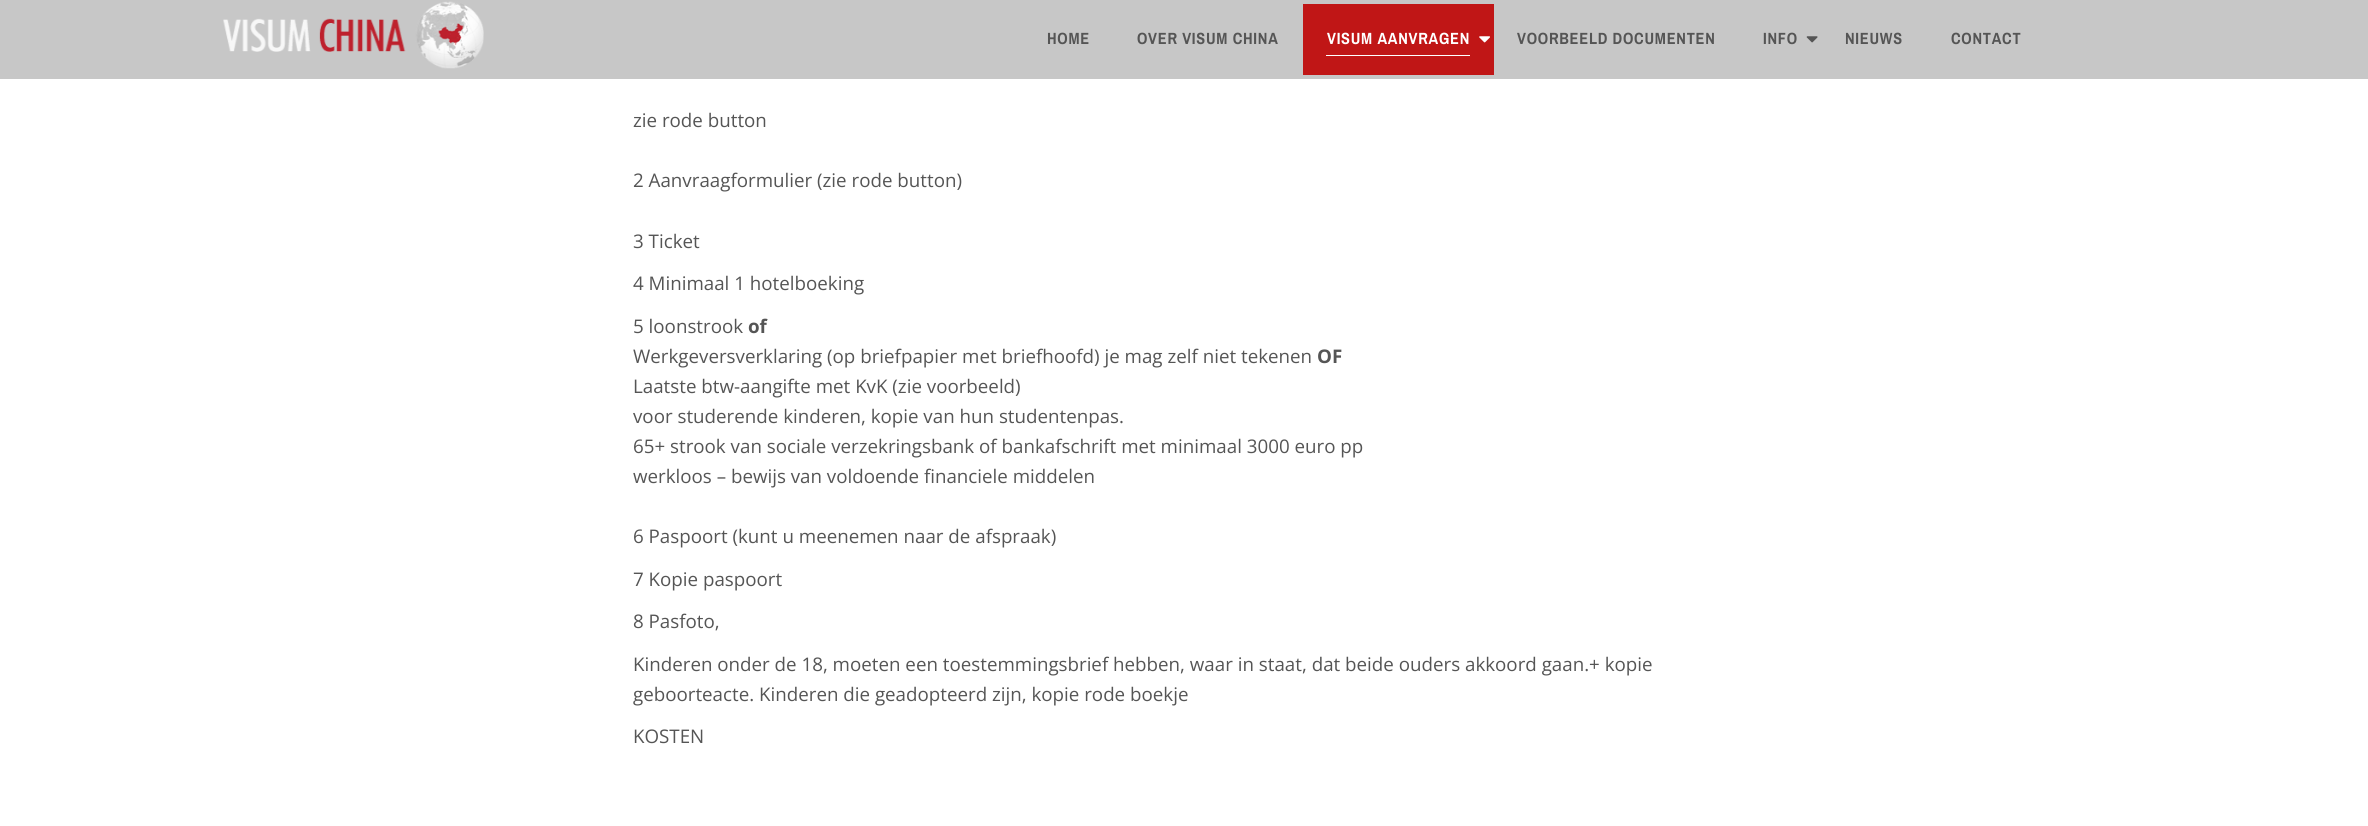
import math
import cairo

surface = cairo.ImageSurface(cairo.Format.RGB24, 2368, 826)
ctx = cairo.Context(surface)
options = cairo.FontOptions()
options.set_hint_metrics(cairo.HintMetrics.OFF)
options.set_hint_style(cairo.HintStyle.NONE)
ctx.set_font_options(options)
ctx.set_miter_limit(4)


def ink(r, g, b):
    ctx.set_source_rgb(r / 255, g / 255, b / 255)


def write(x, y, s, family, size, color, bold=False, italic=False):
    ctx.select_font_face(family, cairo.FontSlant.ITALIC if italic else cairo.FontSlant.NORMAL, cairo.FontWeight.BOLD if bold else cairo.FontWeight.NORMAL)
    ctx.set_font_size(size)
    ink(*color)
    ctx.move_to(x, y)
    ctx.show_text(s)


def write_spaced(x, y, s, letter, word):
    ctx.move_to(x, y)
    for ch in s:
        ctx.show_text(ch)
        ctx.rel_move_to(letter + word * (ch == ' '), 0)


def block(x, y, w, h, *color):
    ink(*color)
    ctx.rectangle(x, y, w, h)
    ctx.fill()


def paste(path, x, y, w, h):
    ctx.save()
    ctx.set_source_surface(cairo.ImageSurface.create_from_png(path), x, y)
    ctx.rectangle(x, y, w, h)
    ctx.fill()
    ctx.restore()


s1 = dict(family="Open Sans", size=18.75, color=(85, 85, 85))
s2 = dict(family="Open Sans", size=18.75, color=(85, 85, 85), bold=True)

ink(255, 255, 255)
ctx.paint()
block(0, 0, 2368, 79, 199, 199, 199)
paste("pic1.png", 223, 1, 261, 68)
ctx.select_font_face("Archivo Narrow", cairo.FontSlant.NORMAL, cairo.FontWeight.BOLD)
ctx.set_font_size(16.25)
ink(85, 85, 85)
write_spaced(1047, 44, "HOME", 0.75, 0)
write_spaced(1137, 44, "OVER VISUM CHINA", 0.75, 0)
block(1303, 4, 191, 71, 192, 22, 22)
ink(255, 255, 255)
write_spaced(1327, 44, "VISUM AANVRAGEN", 0.75, 0)
paste("pic2.png", 1479, 36, 11, 7)
block(1326, 55, 144, 1, 255, 255, 255)
ink(85, 85, 85)
write_spaced(1517, 44, "VOORBEELD DOCUMENTEN", 0.75, 0)
write_spaced(1763, 44, "INFO", 0.75, 0)
paste("pic3.png", 1806, 36, 12, 7)
write_spaced(1845, 44, "NIEUWS", 0.75, 0)
write_spaced(1951, 44, "CONTACT", 0.75, 0)
write(633, 127, "zie rode button", **s1)
write(633, 187, "2 Aanvraagformulier (zie rode button)", **s1)
write(633, 248, "3 Ticket", **s1)
write(633, 290, "4 Minimaal 1 hotelboeking", **s1)
write(633, 333, "5 loonstrook", **s1)
write(748, 333, "of", **s2)
write(633, 363, "Werkgeversverklaring (op briefpapier met briefhoofd) je mag zelf niet tekenen", **s1)
write(1317, 363, "OF", **s2)
write(633, 393, "Laatste btw-aangifte met KvK (zie voorbeeld)", **s1)
write(633, 423, "voor studerende kinderen, kopie van hun studentenpas.", **s1)
write(633, 453, "65+ strook van sociale verzekringsbank of bankafschrift met minimaal 3000 euro pp", **s1)
write(633, 483, "werkloos – bewijs van voldoende financiele middelen", **s1)
write(633, 543, "6 Paspoort (kunt u meenemen naar de afspraak)", **s1)
write(633, 586, "7 Kopie paspoort", **s1)
write(633, 628, "8 Pasfoto,", **s1)
write(633, 671, "Kinderen onder de 18, moeten een toestemmingsbrief hebben, waar in staat, dat beide ouders akkoord gaan.+ kopie", **s1)
write(633, 701, "geboorteacte. Kinderen die geadopteerd zijn, kopie rode boekje", **s1)
write(633, 743, "KOSTEN", **s1)
surface.write_to_png("screenshot.png")
